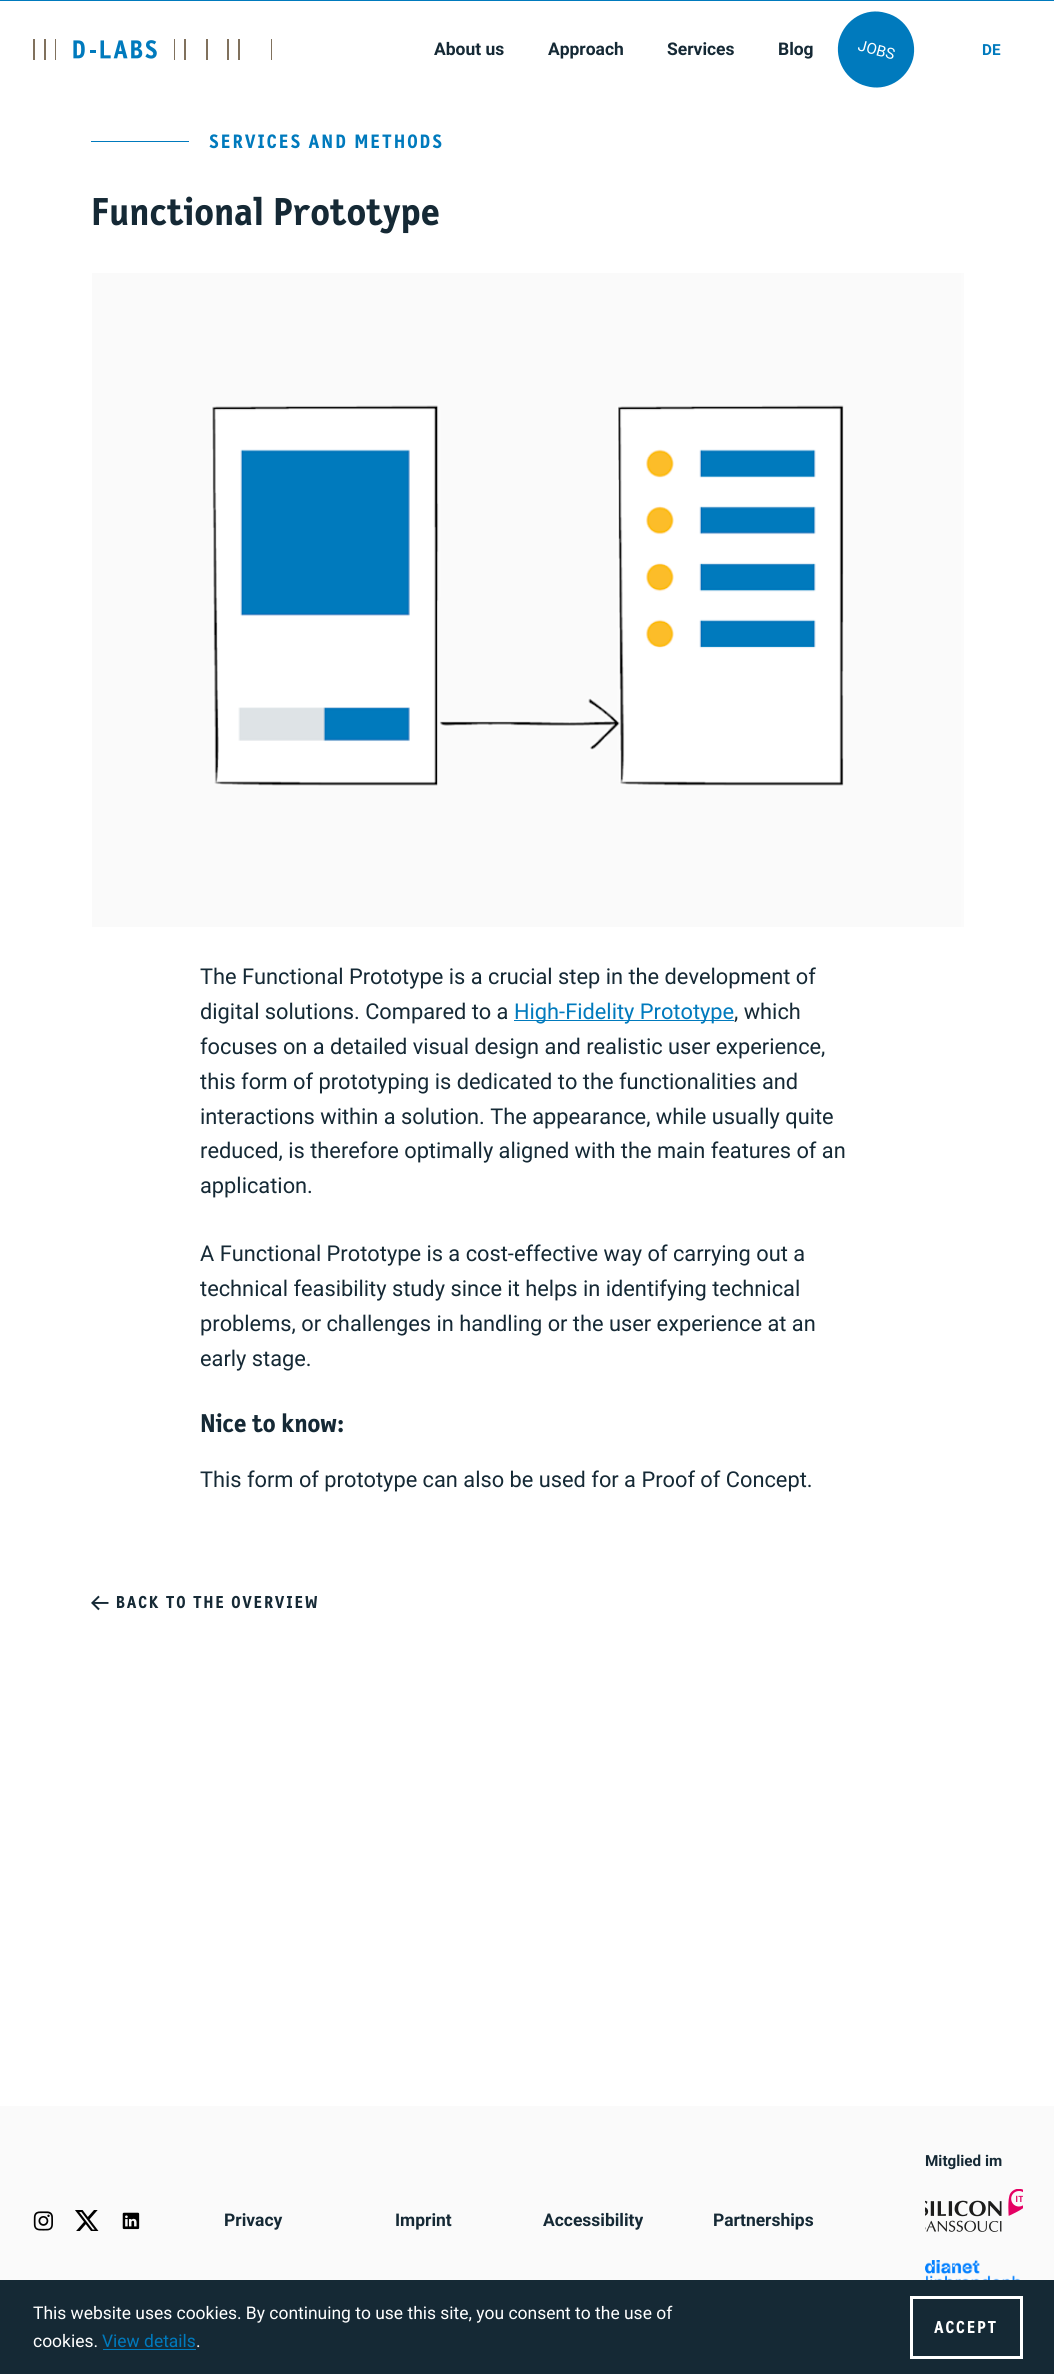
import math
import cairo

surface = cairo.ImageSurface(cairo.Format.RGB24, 1054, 2374)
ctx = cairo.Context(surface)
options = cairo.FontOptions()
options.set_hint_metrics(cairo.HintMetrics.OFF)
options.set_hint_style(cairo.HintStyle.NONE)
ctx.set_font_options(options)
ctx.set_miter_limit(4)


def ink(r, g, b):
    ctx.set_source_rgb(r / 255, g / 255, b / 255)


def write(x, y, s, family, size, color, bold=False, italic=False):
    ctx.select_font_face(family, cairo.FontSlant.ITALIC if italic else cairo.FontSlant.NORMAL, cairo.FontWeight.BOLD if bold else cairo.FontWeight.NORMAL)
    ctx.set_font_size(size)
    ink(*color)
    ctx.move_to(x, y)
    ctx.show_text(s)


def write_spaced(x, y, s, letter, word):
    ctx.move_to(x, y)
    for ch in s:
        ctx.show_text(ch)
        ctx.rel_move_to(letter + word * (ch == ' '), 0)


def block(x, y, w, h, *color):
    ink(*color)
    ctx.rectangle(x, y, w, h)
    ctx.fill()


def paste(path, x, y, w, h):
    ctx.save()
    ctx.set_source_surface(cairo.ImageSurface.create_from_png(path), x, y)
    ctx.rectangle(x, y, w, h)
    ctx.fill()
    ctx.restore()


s1 = dict(family="Roboto", size=17.45, color=(21, 41, 53), bold=True)
s2 = dict(family="Roboto", size=15.25, color=(255, 255, 255))
s3 = dict(family="Roboto", size=15.25, color=(0, 122, 189), bold=True)
s4 = dict(family="Roboto", size=21.8, color=(21, 41, 53))
s5 = dict(family="Roboto", size=21.8, color=(0, 122, 189))
s6 = dict(family="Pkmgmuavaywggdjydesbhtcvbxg", size=26, color=(21, 41, 53), bold=True)
s7 = dict(family="Roboto", size=15.25, color=(21, 41, 53), bold=True)
s8 = dict(family="Roboto", size=17.45, color=(255, 255, 255))
s9 = dict(family="Roboto", size=17.45, color=(0, 122, 189))

ink(255, 255, 255)
ctx.paint()
block(0, 0, 1054, 1, 0, 122, 189)
paste("pic1.png", 33, 39, 239, 21)
write(434, 55, "About us", **s1)
write(548, 55, "Approach", **s1)
write(667, 55, "Services", **s1)
write(778, 55, "Blog", **s1)
ink(0, 122, 189)
ctx.new_path()
ctx.move_to(886, 13)
ctx.curve_to(906, 18, 918, 39, 913, 59)
ctx.curve_to(907, 80, 886, 92, 866, 86)
ctx.curve_to(846, 81, 834, 60, 839, 40)
ctx.curve_to(845, 19, 866, 7, 886, 13)
ctx.close_path()
ctx.fill()
ctx.save()
ctx.translate(857, 50)
ctx.rotate(15 * math.pi / 180)
write(0, 0, "JOBS", **s2)
ctx.restore()
write(982, 55, "DE", **s3)
block(91, 141, 98, 1, 0, 122, 189)
ctx.select_font_face("Pkmgmuavaywggdjydesbhtcvbxg", cairo.FontSlant.NORMAL, cairo.FontWeight.BOLD)
ctx.set_font_size(19.6)
write_spaced(209, 148, "SERVICES AND METHODS", 2, 0)
ctx.set_font_size(39.25)
ink(21, 41, 53)
write_spaced(91, 225, "Functional Prototype", 0.4, 0)
paste("pic2.png", 92, 273, 872, 654)
write(200, 984, "The Functional Prototype is a crucial step in the development of", **s4)
write(200, 1019, "digital solutions. Compared to a", **s4)
block(514, 1020, 220, 1, 0, 122, 189)
write(514, 1019, "High-Fidelity Prototype", **s5)
write(734, 1019, ", which", **s4)
write(200, 1054, "focuses on a detailed visual design and realistic user experience,", **s4)
write(200, 1089, "this form of prototyping is dedicated to the functionalities and", **s4)
write(200, 1124, "interactions within a solution. The appearance, while usually quite", **s4)
write(200, 1158, "reduced, is therefore optimally aligned with the main features of an", **s4)
write(200, 1193, "application.", **s4)
write(200, 1261, "A Functional Prototype is a cost-effective way of carrying out a", **s4)
write(200, 1296, "technical feasibility study since it helps in identifying technical", **s4)
write(200, 1331, "problems, or challenges in handling or the user experience at an", **s4)
write(200, 1366, "early stage.", **s4)
write(200, 1432, "Nice to know:", **s6)
write(200, 1487, "This form of prototype can also be used for a Proof of Concept.", **s4)
ctx.select_font_face("Pkmgmuavaywggdjydesbhtcvbxg", cairo.FontSlant.NORMAL, cairo.FontWeight.BOLD)
ctx.set_font_size(17.45)
write_spaced(91, 1608, "← BACK TO THE OVERVIEW", 1.75, 0)
block(0, 2106, 1054, 174, 250, 250, 250)
write(925, 2166, "Mitglied im", **s7)
paste("pic3.png", 925, 2189, 98, 43)
paste("pic4.png", 925, 2260, 95, 20)
paste("pic5.png", 33, 2211, 20, 20)
paste("pic6.png", 75, 2210, 24, 21)
paste("pic7.png", 122, 2212, 18, 18)
write(224, 2226, "Privacy", **s1)
write(395, 2226, "Imprint", **s1)
write(543, 2226, "Accessibility", **s1)
write(713, 2226, "Partnerships", **s1)
block(0, 2280, 1054, 94, 21, 41, 53)
write(33, 2319, "This website uses cookies. By continuing to use this site, you consent to the use of", **s8)
write(33, 2347, "cookies.", **s8)
write(102, 2347, "View details", **s9)
block(103, 2349, 93, 1, 0, 122, 189)
write(196, 2347, ".", **s8)
ctx.rectangle(911.5, 2297.5, 110, 60)
ctx.set_line_width(3)
ctx.stroke()
ctx.select_font_face("Pkmgmuavaywggdjydesbhtcvbxg", cairo.FontSlant.NORMAL, cairo.FontWeight.BOLD)
write_spaced(934, 2333, "ACCEPT", 1.75, 0)
surface.write_to_png("screenshot.png")
